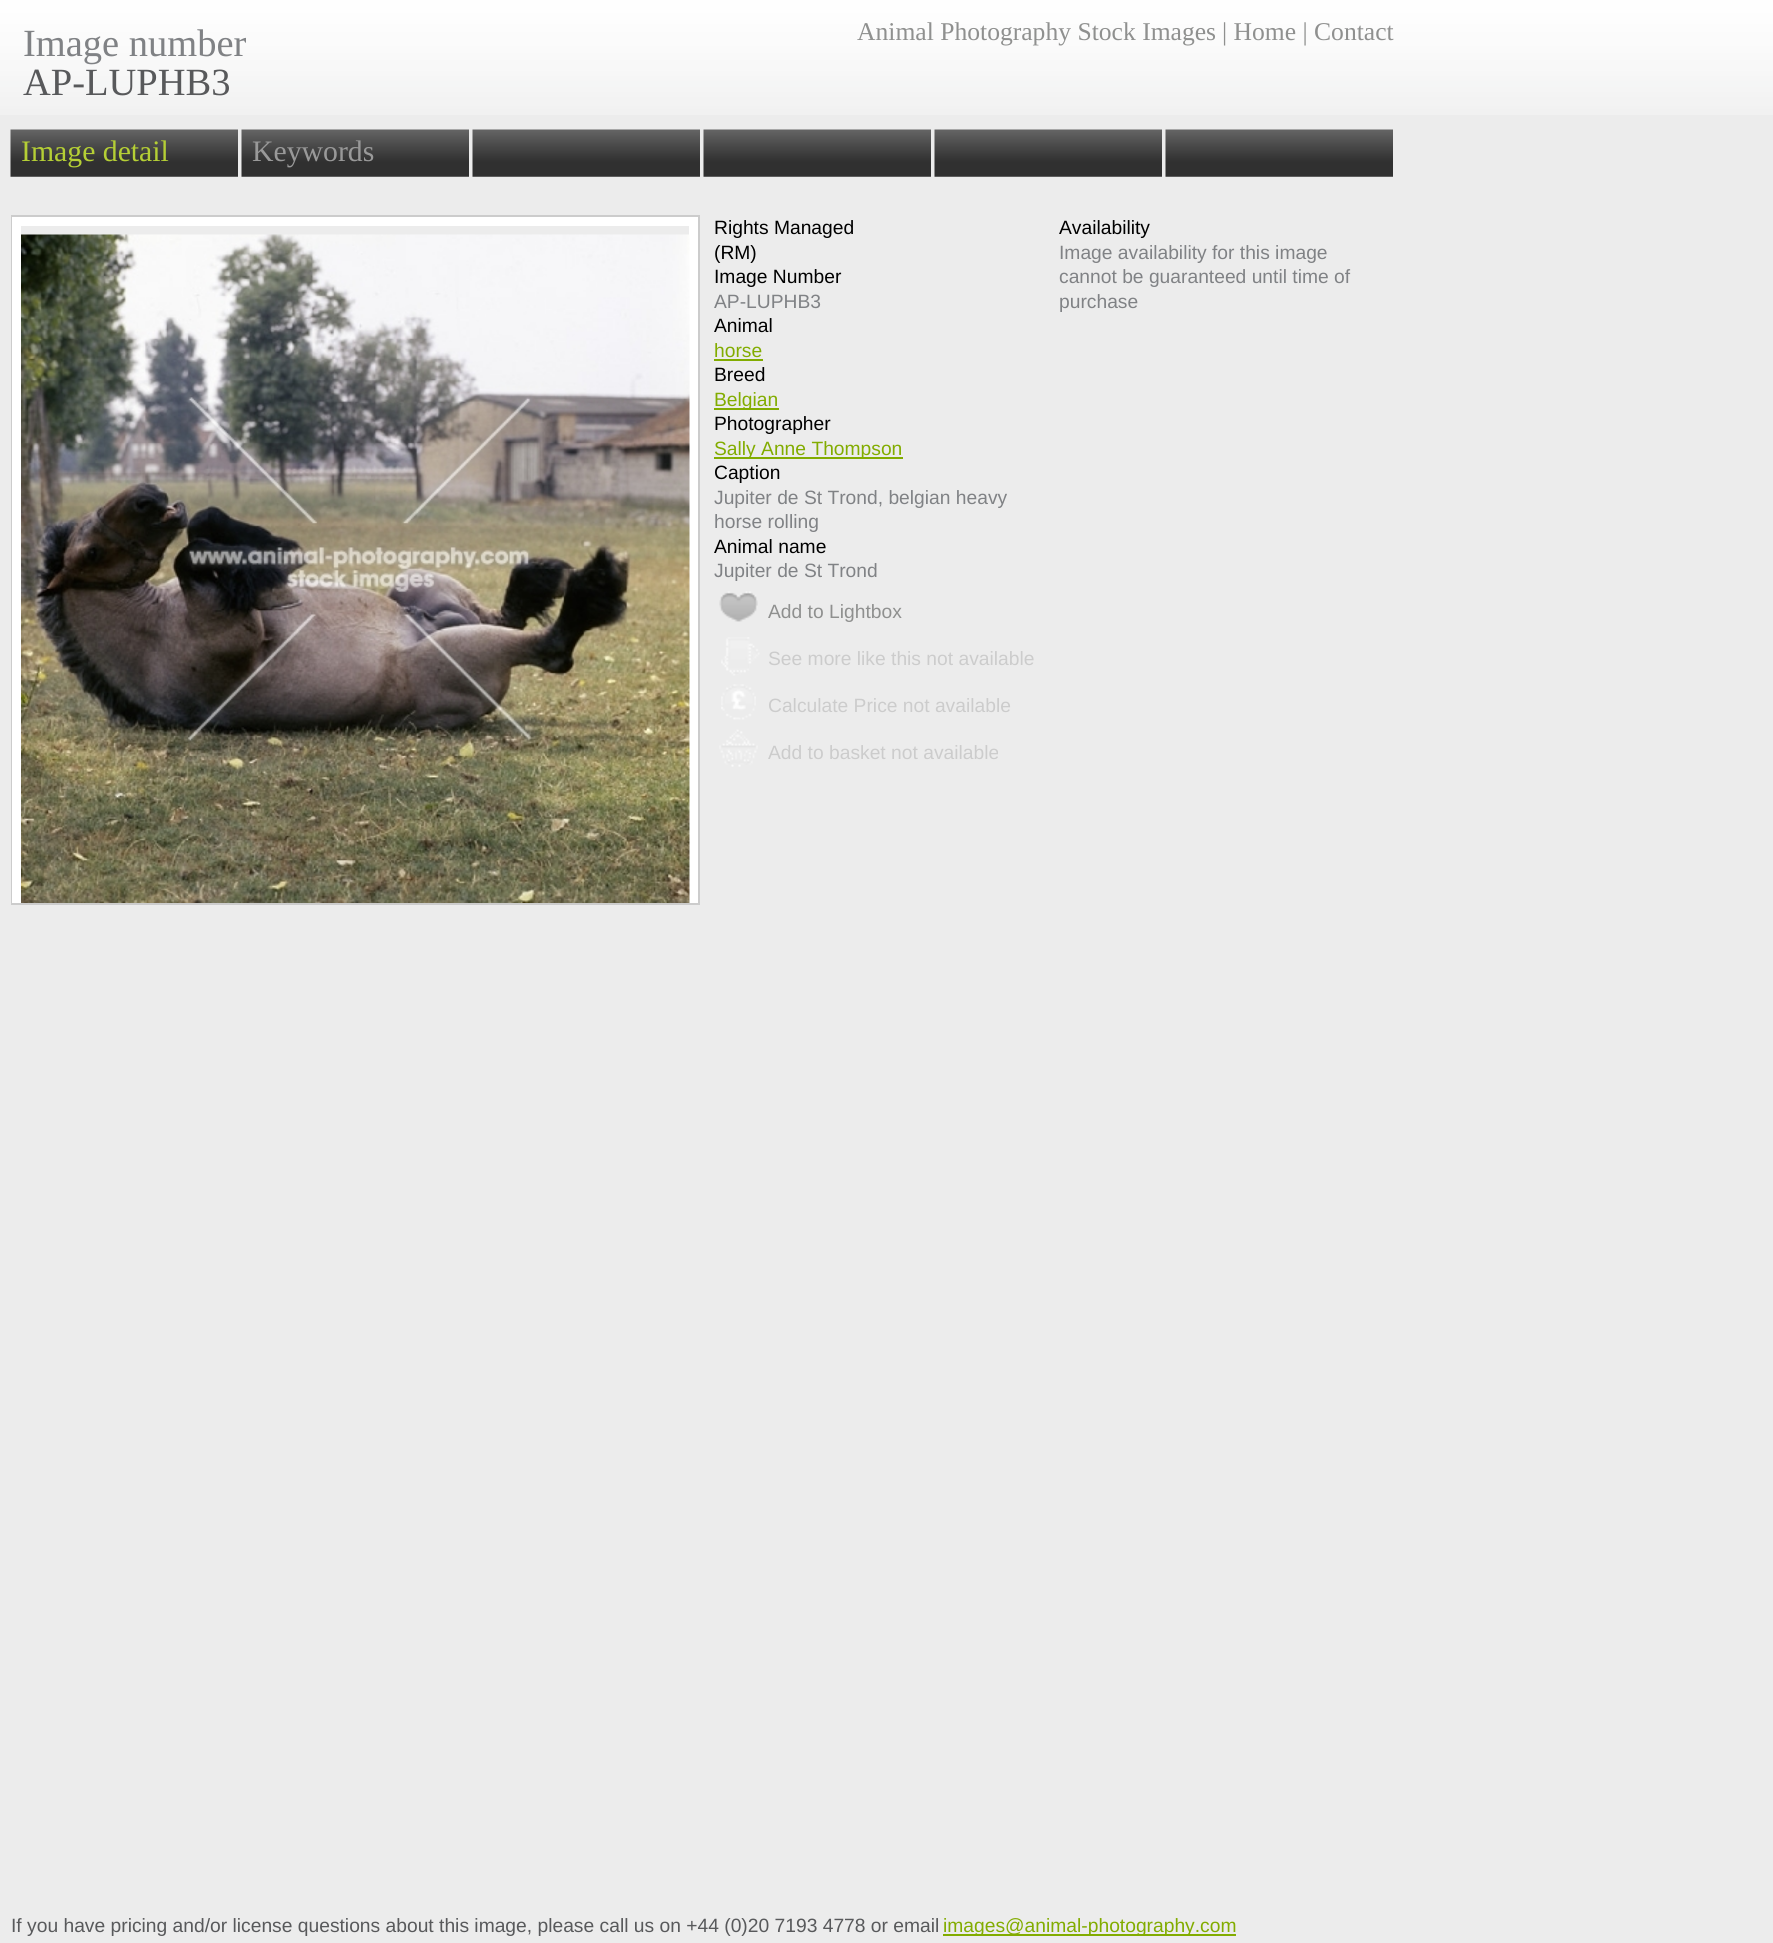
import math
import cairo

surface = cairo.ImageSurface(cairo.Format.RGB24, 1773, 1943)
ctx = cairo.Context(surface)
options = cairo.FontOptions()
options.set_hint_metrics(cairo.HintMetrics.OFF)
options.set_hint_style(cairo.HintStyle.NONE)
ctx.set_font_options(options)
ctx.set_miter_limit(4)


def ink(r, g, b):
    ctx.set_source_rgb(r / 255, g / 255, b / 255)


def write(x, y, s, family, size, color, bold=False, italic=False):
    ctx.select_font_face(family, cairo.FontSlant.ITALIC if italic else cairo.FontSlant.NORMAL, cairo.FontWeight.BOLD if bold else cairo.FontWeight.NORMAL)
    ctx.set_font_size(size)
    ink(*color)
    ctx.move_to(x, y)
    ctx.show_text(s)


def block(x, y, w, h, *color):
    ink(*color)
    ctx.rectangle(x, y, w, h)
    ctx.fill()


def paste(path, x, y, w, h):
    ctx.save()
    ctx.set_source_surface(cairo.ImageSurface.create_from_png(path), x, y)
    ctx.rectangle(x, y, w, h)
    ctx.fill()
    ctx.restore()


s1 = dict(family="Liberation Serif", size=38.5, color=(128, 130, 133))
s2 = dict(family="Liberation Serif", size=38.5, color=(88, 89, 91))
s3 = dict(family="Liberation Serif", size=25.6, color=(143, 144, 143))
s4 = dict(family="Liberation Serif", size=29.75, color=(181, 207, 53))
s5 = dict(family="Liberation Serif", size=29.75, color=(153, 153, 153))
s6 = dict(family="Liberation Sans", size=19.25, color=(0, 0, 0))
s7 = dict(family="Liberation Sans", size=19.25, color=(128, 130, 133))
s8 = dict(family="Liberation Sans", size=19.25, color=(130, 172, 0))
s9 = dict(family="Liberation Sans", size=19.25, color=(143, 144, 143))
s10 = dict(family="Liberation Sans", size=19.25, color=(204, 204, 204))
s11 = dict(family="Liberation Sans", size=19.25, color=(88, 89, 91))

ink(236, 236, 236)
ctx.paint()
paste("pic1.png", 0, 0, 1773, 115)
write(23, 56, "Image number", **s1)
write(23, 95, "AP-LUPHB3", **s2)
write(857, 40, "Animal Photography Stock Images", **s3)
write(1222, 40, "| Home | Contact", **s3)
paste("pic2.png", 10, 129, 228, 48)
write(21, 161, "Image detail", **s4)
paste("pic2.png", 241, 129, 228, 48)
write(252, 161, "Keywords", **s5)
paste("pic2.png", 472, 129, 228, 48)
paste("pic2.png", 703, 129, 228, 48)
paste("pic2.png", 934, 129, 228, 48)
paste("pic2.png", 1165, 129, 228, 48)
ctx.rectangle(12, 216, 687, 688)
ink(204, 204, 204)
ctx.stroke()
ctx.save()
ctx.rectangle(12, 217, 686, 686)
ctx.clip()
ctx.rectangle(16.5, 221.5, 677, 695)
ink(255, 255, 255)
ctx.set_line_width(9)
ctx.stroke()
ctx.restore()
paste("pic3.png", 21, 234, 669, 669)
write(714, 234, "Rights Managed", **s6)
write(714, 259, "(RM)", **s6)
write(714, 283, "Image Number", **s6)
write(714, 308, "AP-LUPHB3", **s7)
write(714, 332, "Animal", **s6)
write(714, 357, "horse", **s8)
block(714, 359, 49, 2, 130, 172, 0)
write(714, 381, "Breed", **s6)
block(714, 408, 65, 2, 130, 172, 0)
write(714, 406, "Belgian", **s8)
write(714, 430, "Photographer", **s6)
block(714, 457, 189, 2, 130, 172, 0)
write(714, 455, "Sally Anne Thompson", **s8)
write(714, 479, "Caption", **s6)
write(714, 504, "Jupiter de St Trond, belgian heavy", **s7)
write(714, 528, "horse rolling", **s7)
write(714, 553, "Animal name", **s6)
write(714, 577, "Jupiter de St Trond", **s7)
write(1059, 234, "Availability", **s6)
write(1059, 259, "Image availability for this image", **s7)
write(1059, 283, "cannot be guaranteed until time of", **s7)
write(1059, 308, "purchase", **s7)
paste("pic4.png", 719, 591, 39, 31)
write(768, 618, "Add to Lightbox", **s9)
paste("pic5.png", 721, 637, 39, 39)
write(768, 665, "See more like this not available", **s10)
paste("pic6.png", 721, 684, 35, 36)
write(768, 712, "Calculate Price not available", **s10)
paste("pic7.png", 719, 729, 39, 38)
write(768, 759, "Add to basket not available", **s10)
write(11, 1932, "If you have pricing and/or license questions about this image, please call us on +44 (0)20 7193 4778 or email", **s11)
block(943, 1934, 293, 2, 130, 172, 0)
write(943, 1932, "images@animal-photography.com", **s8)
surface.write_to_png("screenshot.png")
